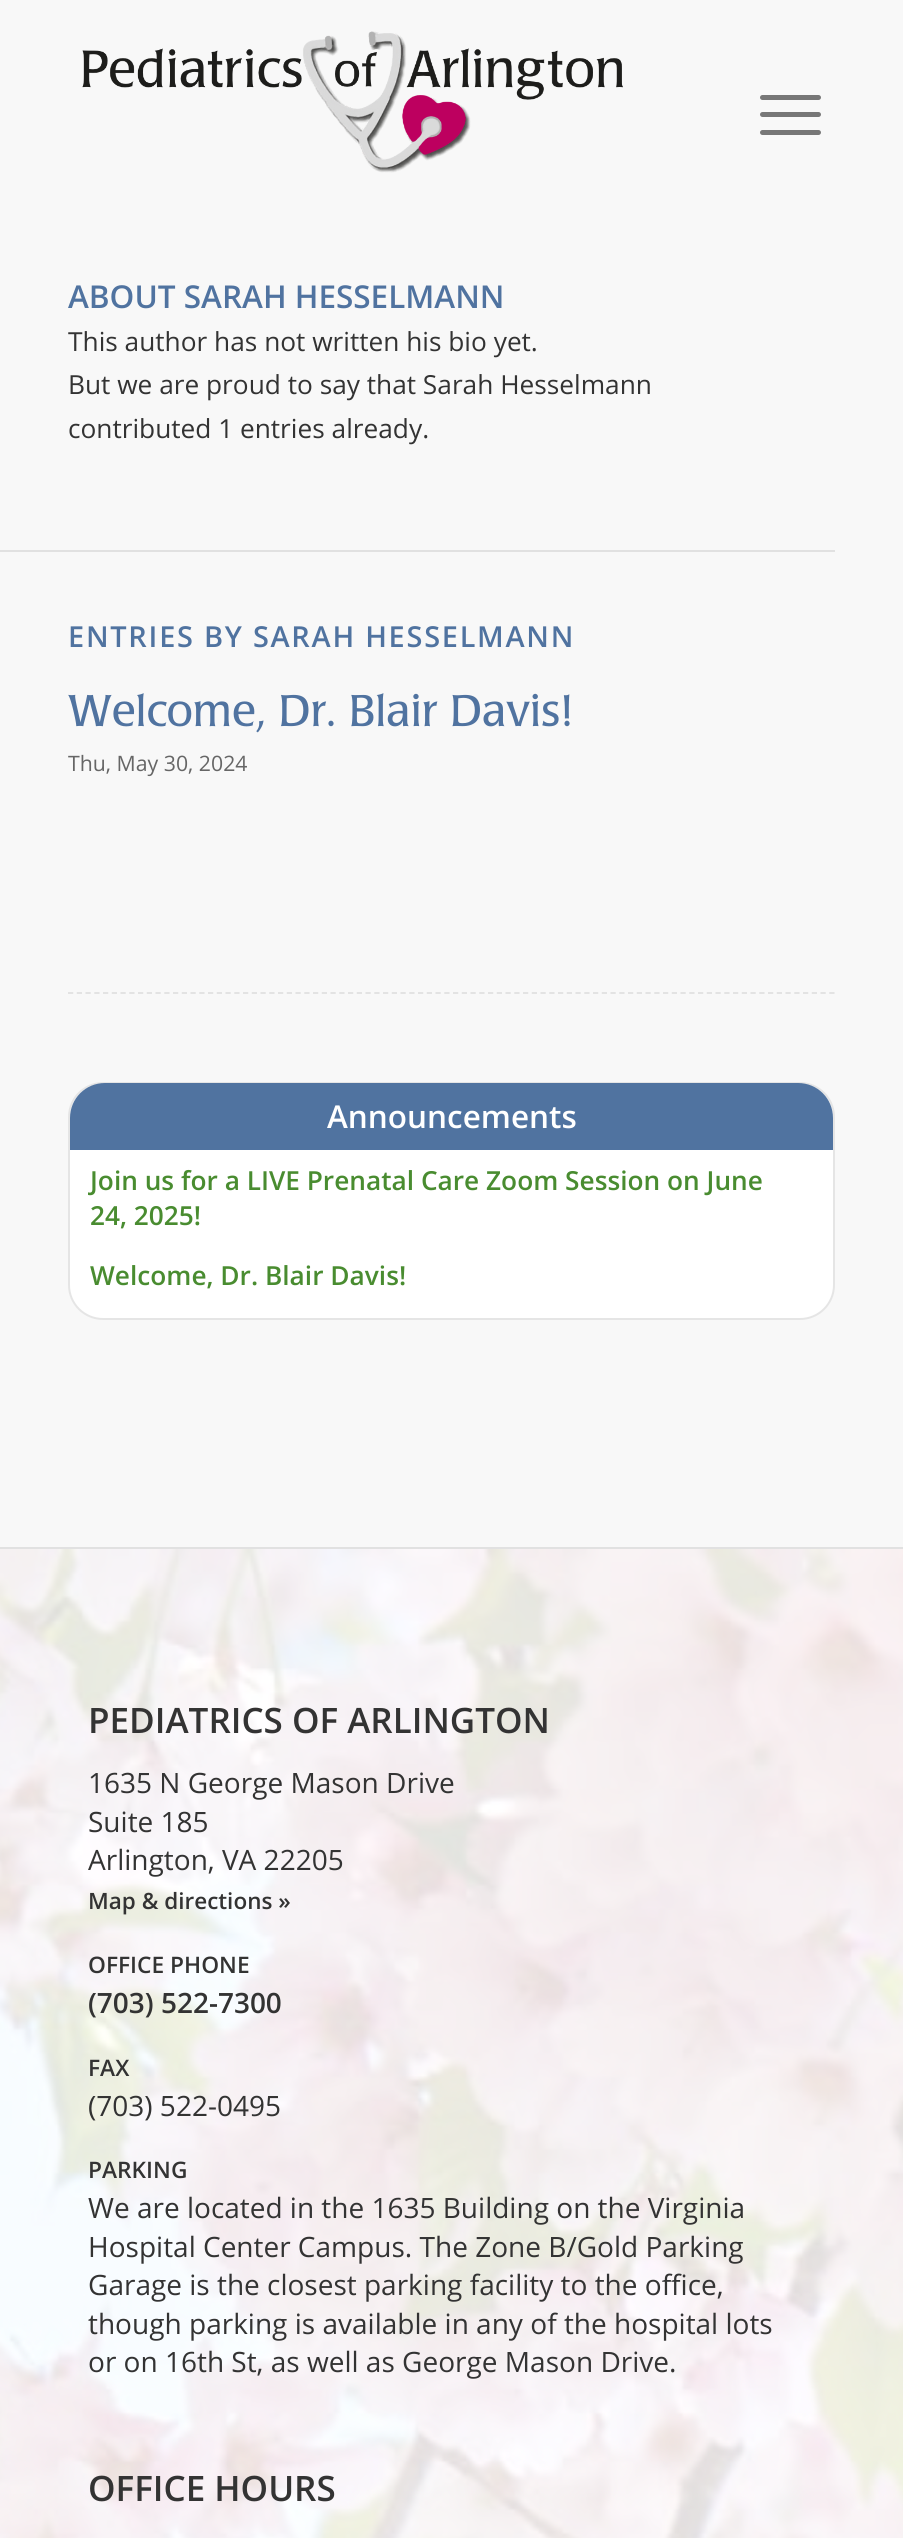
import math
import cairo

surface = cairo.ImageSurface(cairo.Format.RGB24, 903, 2538)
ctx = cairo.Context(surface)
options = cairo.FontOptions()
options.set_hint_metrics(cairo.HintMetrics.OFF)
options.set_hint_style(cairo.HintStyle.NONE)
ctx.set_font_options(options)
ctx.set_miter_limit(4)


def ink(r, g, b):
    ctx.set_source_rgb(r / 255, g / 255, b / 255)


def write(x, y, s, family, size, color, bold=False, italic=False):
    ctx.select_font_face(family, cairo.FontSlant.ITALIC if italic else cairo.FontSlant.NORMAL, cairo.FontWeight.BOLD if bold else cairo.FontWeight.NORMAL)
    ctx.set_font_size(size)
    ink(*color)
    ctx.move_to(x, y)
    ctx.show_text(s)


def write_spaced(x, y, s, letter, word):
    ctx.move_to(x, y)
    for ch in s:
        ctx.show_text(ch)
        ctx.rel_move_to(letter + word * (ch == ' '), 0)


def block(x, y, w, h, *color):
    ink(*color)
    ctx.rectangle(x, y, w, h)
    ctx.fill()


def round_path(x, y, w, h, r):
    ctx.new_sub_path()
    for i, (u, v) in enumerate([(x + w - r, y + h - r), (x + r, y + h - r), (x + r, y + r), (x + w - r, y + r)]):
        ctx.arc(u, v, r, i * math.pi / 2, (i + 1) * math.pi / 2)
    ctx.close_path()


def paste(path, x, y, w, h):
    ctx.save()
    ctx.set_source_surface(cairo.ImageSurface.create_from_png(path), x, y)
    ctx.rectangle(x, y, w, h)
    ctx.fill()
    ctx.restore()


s1 = dict(family="Open Sans SemiBold", size=31.5, color=(80, 115, 160))
s2 = dict(family="Open Sans", size=26.25, color=(51, 51, 51))
s3 = dict(family="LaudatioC", size=43.75, color=(80, 115, 160))
s4 = dict(family="Open Sans", size=21.25, color=(102, 102, 102))
s5 = dict(family="Open Sans SemiBold", size=31.5, color=(255, 255, 255))
s6 = dict(family="Open Sans SemiBold", size=26.25, color=(73, 140, 48))
s7 = dict(family="Open Sans SemiBold", size=35, color=(51, 51, 51))
s8 = dict(family="Open Sans", size=28, color=(51, 51, 51))
s9 = dict(family="Open Sans SemiBold", size=22.5, color=(51, 51, 51))
s10 = dict(family="Open Sans SemiBold", size=22.75, color=(51, 51, 51))
s11 = dict(family="Open Sans SemiBold", size=28, color=(51, 51, 51))

ink(248, 248, 248)
ctx.paint()
paste("pic1.png", 82, 31, 541, 142)
ink(119, 119, 119)
round_path(760, 112, 61, 5, 2.5)
ctx.fill()
round_path(760, 95, 61, 5, 2.5)
ctx.fill()
round_path(760, 130, 61, 5, 2.5)
ctx.fill()
write(68, 308, "ABOUT SARAH HESSELMANN", **s1)
write(68, 351, "This author has not written his bio yet.", **s2)
write(68, 394, "But we are proud to say that Sarah Hesselmann", **s2)
write(68, 438, "contributed 1 entries already.", **s2)
block(0, 550, 835, 2, 225, 225, 225)
ctx.select_font_face("Open Sans SemiBold")
ctx.set_font_size(28.9)
ink(80, 115, 160)
write_spaced(68, 647, "ENTRIES BY SARAH HESSELMANN", 1.75, 0)
write(68, 726, "Welcome, Dr. Blair Davis!", **s3)
write(68, 771, "Thu, May 30, 2024", **s4)
ctx.new_path()
ctx.move_to(68, 993)
ctx.line_to(835, 993)
ink(225, 225, 225)
ctx.set_line_width(1.8)
ctx.set_dash([5.25, 3.5])
ctx.stroke()
ink(255, 255, 255)
round_path(69, 1083, 765, 236, 34)
ctx.fill_preserve()
ink(229, 229, 229)
ctx.set_line_width(2)
ctx.set_dash([])
ctx.stroke()
ink(80, 115, 160)
ctx.new_path()
ctx.move_to(105, 1083)
ctx.line_to(798, 1083)
ctx.curve_to(817.5, 1083, 833, 1098.5, 833, 1118)
ctx.line_to(833, 1150)
ctx.line_to(70, 1150)
ctx.line_to(70, 1118)
ctx.curve_to(70, 1098.5, 85.5, 1083, 105, 1083)
ctx.close_path()
ctx.fill()
write(327, 1128, "Announcements", **s5)
write(90, 1190, "Join us for a LIVE Prenatal Care Zoom Session on June", **s6)
write(90, 1225, "24, 2025!", **s6)
write(90, 1285, "Welcome, Dr. Blair Davis!", **s6)
paste("pic2.png", 0, 1549, 903, 989)
block(0, 1547, 903, 2, 225, 225, 225)
write(88, 1733, "PEDIATRICS OF ARLINGTON", **s7)
write(88, 1793, "1635 N George Mason Drive", **s8)
write(88, 1832, "Suite 185", **s8)
write(88, 1870, "Arlington, VA 22205", **s8)
write(88, 1909, "Map & directions »", **s9)
write(88, 1973, "OFFICE PHONE", **s10)
write(88, 2013, "(703) 522-7300", **s11)
write(88, 2076, "FAX", **s10)
write(88, 2116, "(703) 522-0495", **s8)
write(88, 2178, "PARKING", **s10)
write(88, 2218, "We are located in the 1635 Building on the Virginia", **s8)
write(88, 2257, "Hospital Center Campus. The Zone B/Gold Parking", **s8)
write(88, 2295, "Garage is the closest parking facility to the office,", **s8)
write(88, 2334, "though parking is available in any of the hospital lots", **s8)
write(88, 2372, "or on 16th St, as well as George Mason Drive.", **s8)
write(88, 2501, "OFFICE HOURS", **s7)
surface.write_to_png("screenshot.png")
